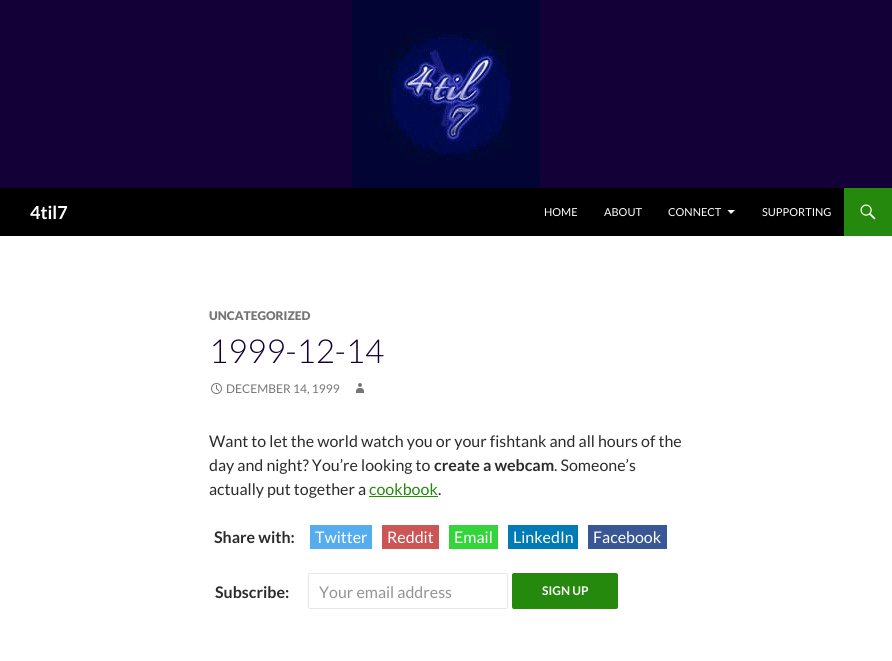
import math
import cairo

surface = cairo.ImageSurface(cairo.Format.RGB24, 892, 661)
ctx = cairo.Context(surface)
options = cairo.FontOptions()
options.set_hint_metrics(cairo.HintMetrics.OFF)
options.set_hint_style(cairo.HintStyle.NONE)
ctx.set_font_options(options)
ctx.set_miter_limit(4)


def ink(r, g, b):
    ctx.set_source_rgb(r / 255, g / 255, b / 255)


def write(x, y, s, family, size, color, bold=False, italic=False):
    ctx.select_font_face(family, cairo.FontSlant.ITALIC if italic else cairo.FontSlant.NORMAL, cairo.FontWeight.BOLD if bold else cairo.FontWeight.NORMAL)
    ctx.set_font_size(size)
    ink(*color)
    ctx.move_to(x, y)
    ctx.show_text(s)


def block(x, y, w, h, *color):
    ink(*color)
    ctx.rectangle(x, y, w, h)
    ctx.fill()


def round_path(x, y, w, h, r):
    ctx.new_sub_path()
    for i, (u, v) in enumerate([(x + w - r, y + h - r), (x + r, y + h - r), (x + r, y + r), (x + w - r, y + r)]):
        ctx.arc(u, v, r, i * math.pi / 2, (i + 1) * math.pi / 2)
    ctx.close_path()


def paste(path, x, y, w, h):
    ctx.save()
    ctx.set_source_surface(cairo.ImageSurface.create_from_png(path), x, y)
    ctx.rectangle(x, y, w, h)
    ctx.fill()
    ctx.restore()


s1 = dict(family="Lato", size=18, color=(255, 255, 255), bold=True)
s2 = dict(family="Lato", size=11, color=(255, 255, 255))
s3 = dict(family="Lato Black", size=12, color=(118, 118, 118))
s4 = dict(family="Lato Light", size=33, color=(19, 0, 54))
s5 = dict(family="Lato", size=12, color=(118, 118, 118))
s6 = dict(family="Lato", size=16, color=(43, 43, 43))
s7 = dict(family="Lato", size=16, color=(43, 43, 43), bold=True)
s8 = dict(family="Lato", size=16, color=(36, 137, 13))
s9 = dict(family="Lato", size=16, color=(255, 255, 255))
s10 = dict(family="Lato", size=16, color=(147, 147, 147))
s11 = dict(family="Lato", size=12, color=(255, 255, 255), bold=True)

ink(255, 255, 255)
ctx.paint()
block(0, 0, 892, 188, 19, 0, 54)
paste("pic1.png", 352, 0, 188, 188)
block(0, 188, 844, 48, 0, 0, 0)
write(30, 219, "4til7", **s1)
write(544, 216, "HOME", **s2)
write(604, 216, "ABOUT", **s2)
write(668, 216, "CONNECT", **s2)
ctx.new_path()
ctx.move_to(727.5, 210)
ctx.line_to(731, 214)
ctx.line_to(735, 210)
ctx.close_path()
ctx.fill()
write(762, 216, "SUPPORTING", **s2)
block(844, 188, 48, 48, 36, 137, 13)
paste("pic2.png", 860, 204, 16, 16)
write(209, 320, "UNCATEGORIZED", **s3)
write(209, 363, "1999-12-14", **s4)
paste("pic3.png", 211, 383, 11, 11)
write(226, 393, "DECEMBER 14, 1999", **s5)
paste("pic4.png", 356, 383, 8, 10)
write(209, 447, "Want to let the world watch you or your fishtank and all hours of the", **s6)
write(209, 471, "day and night? You’re looking to", **s6)
write(434, 471, "create a webcam", **s7)
write(554, 471, ". Someone’s", **s6)
write(209, 495, "actually put together a", **s6)
write(369, 495, "cookbook", **s8)
block(369, 496, 69, 1, 36, 137, 13)
write(438, 495, ".", **s6)
write(214, 543, "Share with:", **s7)
block(310, 525, 62, 24, 85, 172, 238)
write(315, 543, "Twitter", **s9)
block(382, 525, 57, 24, 204, 85, 85)
write(387, 543, "Reddit", **s9)
block(449, 525, 49, 24, 52, 213, 59)
write(454, 543, "Email", **s9)
block(508, 525, 70, 24, 0, 123, 182)
write(513, 543, "LinkedIn", **s9)
block(588, 525, 79, 24, 58, 87, 149)
write(593, 543, "Facebook", **s9)
write(215, 598, "Subscribe:", **s7)
round_path(308.5, 573.5, 199, 35, 1.5)
ink(230, 230, 230)
ctx.set_line_width(1)
ctx.stroke()
write(319, 598, "Your email address", **s10)
ink(36, 137, 13)
round_path(512, 573, 106, 36, 2)
ctx.fill()
write(542, 595, "SIGN UP", **s11)
surface.write_to_png("screenshot.png")
